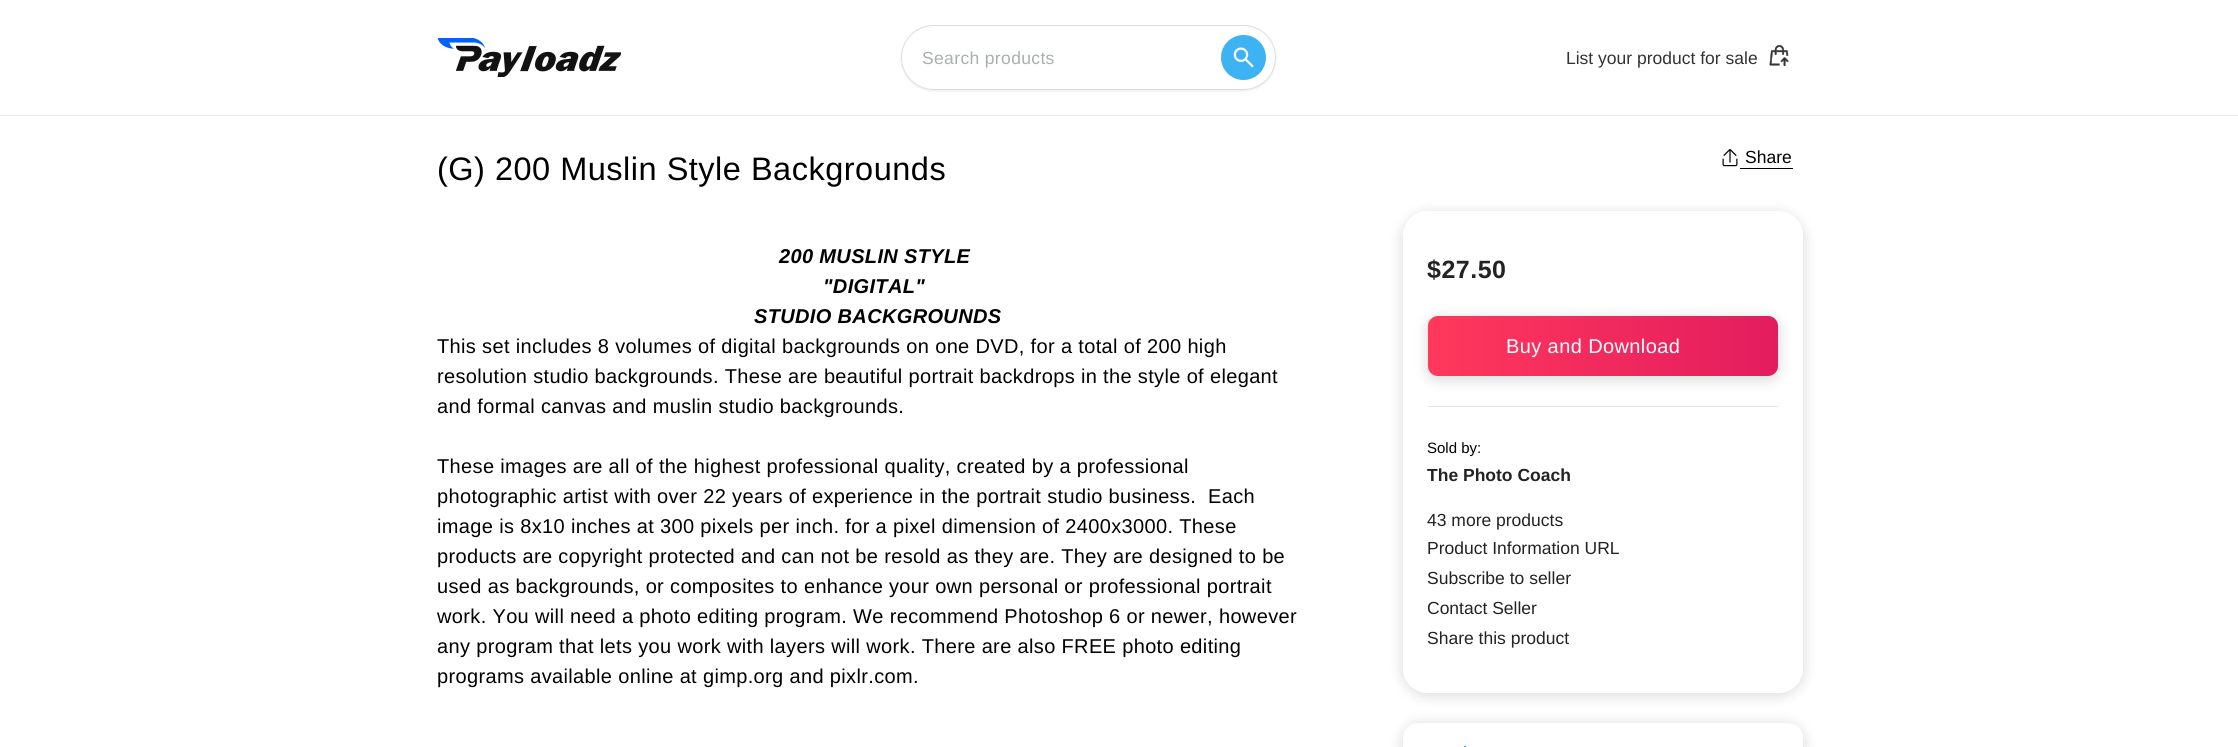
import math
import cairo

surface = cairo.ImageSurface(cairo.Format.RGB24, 2238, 747)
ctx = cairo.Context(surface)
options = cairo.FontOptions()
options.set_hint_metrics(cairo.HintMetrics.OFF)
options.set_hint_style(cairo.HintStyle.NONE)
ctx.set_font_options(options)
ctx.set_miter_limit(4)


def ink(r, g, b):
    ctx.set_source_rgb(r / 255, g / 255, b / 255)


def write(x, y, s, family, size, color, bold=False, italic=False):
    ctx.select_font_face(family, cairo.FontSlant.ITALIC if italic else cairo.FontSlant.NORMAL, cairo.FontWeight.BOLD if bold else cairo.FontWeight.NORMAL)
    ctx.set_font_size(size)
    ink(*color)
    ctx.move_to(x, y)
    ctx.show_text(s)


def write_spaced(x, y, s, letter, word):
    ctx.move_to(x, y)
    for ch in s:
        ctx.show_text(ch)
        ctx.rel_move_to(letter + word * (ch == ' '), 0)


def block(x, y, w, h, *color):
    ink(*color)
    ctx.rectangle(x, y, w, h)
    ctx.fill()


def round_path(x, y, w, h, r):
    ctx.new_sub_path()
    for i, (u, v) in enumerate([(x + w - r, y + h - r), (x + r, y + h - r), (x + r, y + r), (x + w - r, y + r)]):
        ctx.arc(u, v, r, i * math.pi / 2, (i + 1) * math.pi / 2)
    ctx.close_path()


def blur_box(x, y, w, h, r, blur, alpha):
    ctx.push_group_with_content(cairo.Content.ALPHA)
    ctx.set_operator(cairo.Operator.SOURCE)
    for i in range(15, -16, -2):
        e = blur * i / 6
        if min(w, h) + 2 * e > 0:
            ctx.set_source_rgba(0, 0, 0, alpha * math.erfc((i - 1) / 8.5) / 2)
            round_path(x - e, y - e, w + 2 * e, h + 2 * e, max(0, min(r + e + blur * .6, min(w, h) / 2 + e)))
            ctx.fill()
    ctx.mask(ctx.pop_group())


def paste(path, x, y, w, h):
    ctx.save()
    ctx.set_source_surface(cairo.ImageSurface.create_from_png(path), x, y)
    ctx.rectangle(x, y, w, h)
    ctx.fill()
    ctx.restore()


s1 = dict(family="Liberation Sans", size=17.5, color=(51, 51, 51))
s2 = dict(family="Liberation Sans", size=17.5, color=(0, 0, 0))
s3 = dict(family="Liberation Sans", size=15, color=(0, 0, 0))
s4 = dict(family="Liberation Sans", size=17.5, color=(35, 35, 35), bold=True)
s5 = dict(family="Liberation Sans", size=17.5, color=(35, 35, 35))

ink(255, 255, 255)
ctx.paint()
block(0, 115, 2238, 1, 232, 232, 232)
paste("pic1.png", 438, 38, 183, 39)
ctx.save()
ctx.set_fill_rule(cairo.FillRule.EVEN_ODD)
ctx.new_path()
ctx.move_to(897, 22)
ctx.line_to(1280, 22)
ctx.line_to(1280, 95)
ctx.line_to(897, 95)
ctx.close_path()
ctx.move_to(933.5, 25)
ctx.line_to(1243.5, 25)
ctx.curve_to(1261.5, 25, 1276, 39.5, 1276, 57.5)
ctx.curve_to(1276, 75.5, 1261.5, 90, 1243.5, 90)
ctx.line_to(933.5, 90)
ctx.curve_to(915.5, 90, 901, 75.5, 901, 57.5)
ctx.curve_to(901, 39.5, 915.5, 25, 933.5, 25)
ctx.close_path()
ctx.clip()
ink(0, 0, 0)
blur_box(901, 26, 375, 65, 32.5, 1, 0.08)
ctx.restore()
round_path(901.5, 25.5, 374, 64, 32)
ink(221, 221, 221)
ctx.set_line_width(1)
ctx.stroke()
ctx.select_font_face("Liberation Sans")
ctx.set_font_size(17.5)
ink(169, 175, 173)
write_spaced(922, 64, "Search products", 0.35, 0)
paste("pic2.png", 1221, 35, 45, 45)
write(1566, 64, "List your product for sale", **s1)
paste("pic3.png", 1769, 45, 20, 22)
ctx.set_font_size(32.5)
ink(0, 0, 0)
write_spaced(437, 180, "(G) 200 Muslin Style Backgrounds", 0.5, 0)
ctx.select_font_face("Liberation Sans", cairo.FontSlant.ITALIC, cairo.FontWeight.BOLD)
ctx.set_font_size(20)
write_spaced(779, 263, "200 MUSLIN STYLE", 0.35, 0)
write_spaced(823, 293, "\"DIGITAL\"", 0.35, 0)
write_spaced(754, 323, "STUDIO BACKGROUNDS", 0.35, 0)
ctx.select_font_face("Liberation Sans")
write_spaced(437, 353, "This set includes 8 volumes of digital backgrounds on one DVD, for a total of 200 high", 0.35, 0)
write_spaced(437, 383, "resolution studio backgrounds. These are beautiful portrait backdrops in the style of elegant", 0.35, 0)
write_spaced(437, 413, "and formal canvas and muslin studio backgrounds.", 0.35, 0)
write_spaced(437, 473, "These images are all of the highest professional quality, created by a professional", 0.35, 0)
write_spaced(437, 503, "photographic artist with over 22 years of experience in the portrait studio business.  Each", 0.35, 0)
write_spaced(437, 533, "image is 8x10 inches at 300 pixels per inch. for a pixel dimension of 2400x3000. These", 0.35, 0)
write_spaced(437, 563, "products are copyright protected and can not be resold as they are. They are designed to be", 0.35, 0)
write_spaced(437, 593, "used as backgrounds, or composites to enhance your own personal or professional portrait", 0.35, 0)
write_spaced(437, 623, "work. You will need a photo editing program. We recommend Photoshop 6 or newer, however", 0.35, 0)
write_spaced(437, 653, "any program that lets you work with layers will work. There are also FREE photo editing", 0.35, 0)
write_spaced(437, 683, "programs available online at gimp.org and pixlr.com.", 0.35, 0)
paste("pic4.png", 1722, 149, 16, 18)
block(1740, 168, 53, 1, 0, 0, 0)
write(1745, 163, "Share", **s2)
ctx.save()
ctx.set_fill_rule(cairo.FillRule.EVEN_ODD)
ctx.new_path()
ctx.move_to(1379, 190)
ctx.line_to(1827, 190)
ctx.line_to(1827, 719)
ctx.line_to(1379, 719)
ctx.close_path()
ctx.move_to(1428, 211)
ctx.line_to(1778, 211)
ctx.curve_to(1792, 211, 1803, 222, 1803, 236)
ctx.line_to(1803, 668)
ctx.curve_to(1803, 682, 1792, 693, 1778, 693)
ctx.line_to(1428, 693)
ctx.curve_to(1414, 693, 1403, 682, 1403, 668)
ctx.line_to(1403, 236)
ctx.curve_to(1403, 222, 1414, 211, 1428, 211)
ctx.close_path()
ctx.clip()
ink(0, 0, 0)
blur_box(1403, 214, 400, 481, 25, 7.5, 0.16)
ctx.restore()
ctx.select_font_face("Liberation Sans", cairo.FontSlant.NORMAL, cairo.FontWeight.BOLD)
ctx.set_font_size(25)
ink(35, 35, 35)
write_spaced(1427, 278, "$27.50", 0.5, 0)
ink(0, 0, 0)
blur_box(1428, 319, 350, 60, 10, 7.5, 0.16)
gradient = cairo.LinearGradient(1428, 346, 1778, 346)
gradient.add_color_stop_rgba(0, 1, 0.22, 0.361, 1)
gradient.add_color_stop_rgba(1, 0.89, 0.11, 0.373, 1)
ctx.set_source(gradient)
round_path(1428, 316, 350, 60, 10)
ctx.fill()
ctx.select_font_face("Liberation Sans")
ctx.set_font_size(20)
ink(255, 255, 255)
write_spaced(1506, 353, "Buy and Download", 0.4, 0)
block(1428, 406, 350, 1, 229, 231, 235)
write(1427, 453, "Sold by:", **s3)
write(1427, 481, "The Photo Coach", **s4)
write(1427, 526, "43 more products", **s5)
write(1427, 554, "Product Information URL", **s5)
write(1427, 584, "Subscribe to seller", **s5)
write(1427, 614, "Contact Seller", **s5)
write(1427, 644, "Share this product", **s5)
ink(0, 0, 0)
blur_box(1403, 725, 400, 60, 15, 7.5, 0.16)
ink(255, 255, 255)
round_path(1403, 723, 400, 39, 15)
ctx.fill()
paste("pic5.png", 1463, 746, 4, 1)
surface.write_to_png("screenshot.png")
